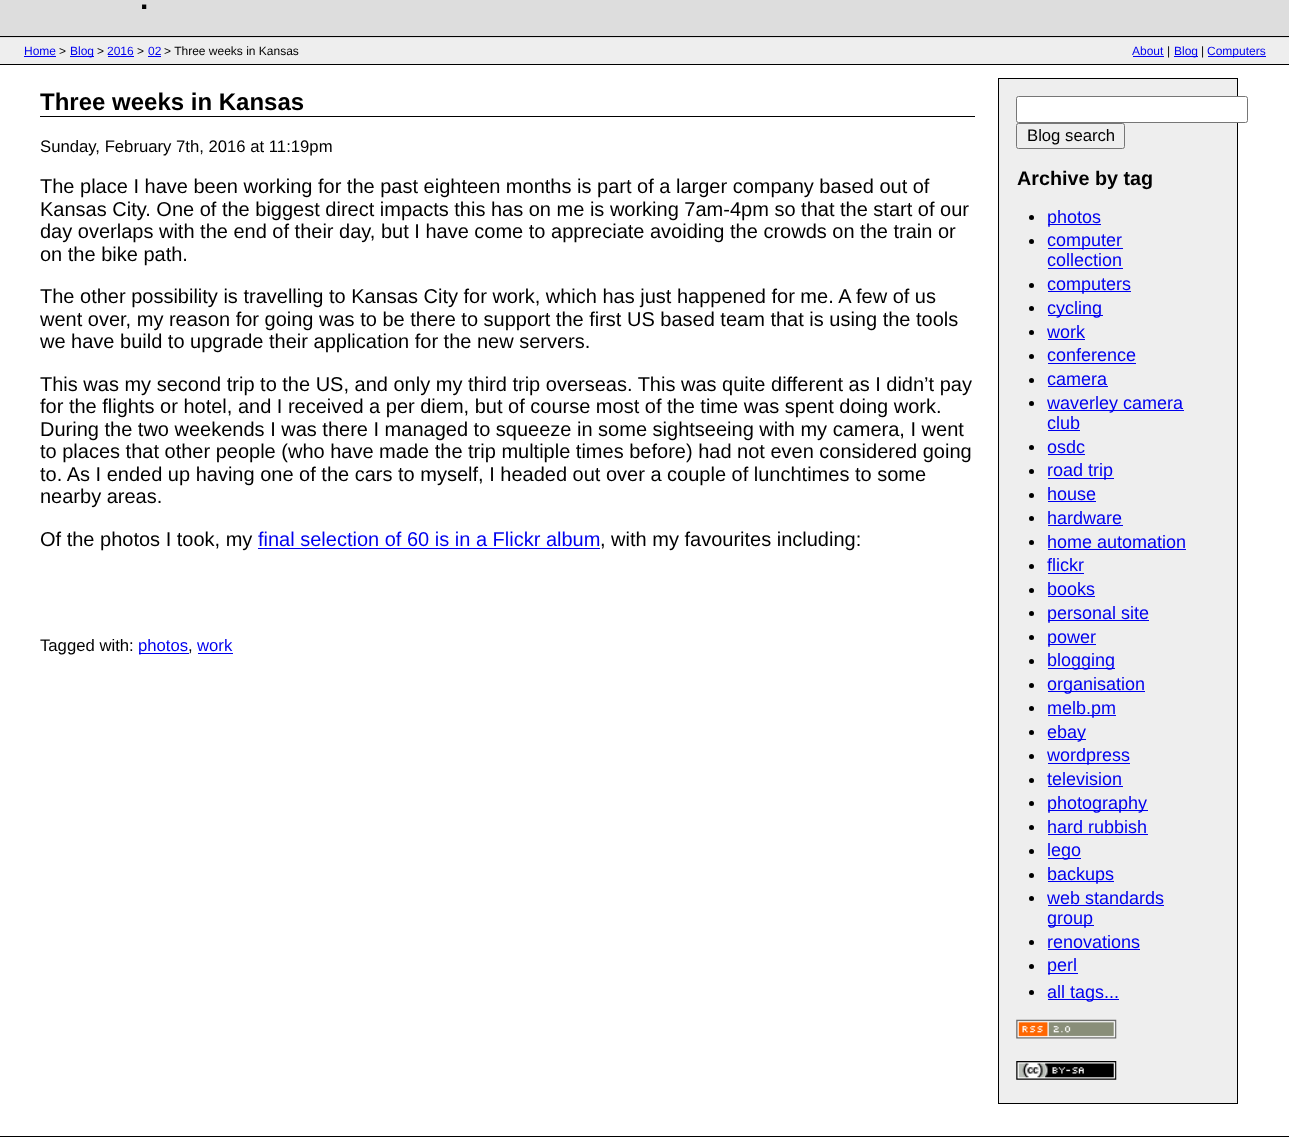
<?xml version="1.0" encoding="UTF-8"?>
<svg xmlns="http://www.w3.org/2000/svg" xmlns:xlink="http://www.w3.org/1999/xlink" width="1289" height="1147">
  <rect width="100%" height="100%" fill="#ffffff" />
  <rect width="1289" height="38" fill="#dddddd" />
  <rect y="36" width="1289" height="1" fill="#000000" />
  <rect y="38" width="1289" height="26" fill="#eeeeee" />
  <rect y="64" width="1289" height="1" fill="#000000" />
  <rect x="24" y="56" width="32" height="1" fill="#0000ee" />
  <rect x="70" y="56" width="24" height="1" fill="#0000ee" />
  <rect x="108" y="56" width="26" height="1" fill="#0000ee" />
  <rect x="148" y="56" width="13" height="1" fill="#0000ee" />
  <rect x="1133" y="56" width="31" height="1" fill="#0000ee" />
  <rect x="1174" y="56" width="24" height="1" fill="#0000ee" />
  <rect x="1208" y="56" width="58" height="1" fill="#0000ee" />
  <rect x="40" y="116" width="935" height="1" fill="#000000" />
  <rect x="258" y="548" width="342" height="1" fill="#0000ee" />
  <rect x="139" y="653" width="50" height="1" fill="#0000ee" />
  <rect x="198" y="653" width="35" height="1" fill="#0000ee" />
  <rect x="998.5" y="78.5" width="239" height="1025" fill="#eeeeee" stroke="#000000" />
  <rect x="1016.5" y="96.5" width="231" height="26" rx="2" fill="#ffffff" stroke="#767676" />
  <rect x="1016.5" y="123.5" width="108" height="25" rx="2" fill="none" stroke="#767676" />
  <circle cx="1031.5" cy="217.5" r="2.5" fill="#000000" />
  <rect x="1048" y="224" width="53" height="1" fill="#0000ee" />
  <circle cx="1031.5" cy="241.5" r="2.5" fill="#000000" />
  <rect x="1048" y="248" width="75" height="1" fill="#0000ee" />
  <rect x="1048" y="268" width="75" height="1" fill="#0000ee" />
  <circle cx="1031.5" cy="285.5" r="2.5" fill="#000000" />
  <rect x="1048" y="291" width="83" height="1" fill="#0000ee" />
  <circle cx="1031.5" cy="308.5" r="2.5" fill="#000000" />
  <rect x="1048" y="315" width="55" height="1" fill="#0000ee" />
  <circle cx="1031.5" cy="332.5" r="2.5" fill="#000000" />
  <rect x="1048" y="339" width="37" height="1" fill="#0000ee" />
  <circle cx="1031.5" cy="356.5" r="2.5" fill="#000000" />
  <rect x="1048" y="363" width="88" height="1" fill="#0000ee" />
  <circle cx="1031.5" cy="380.5" r="2.5" fill="#000000" />
  <rect x="1048" y="386" width="60" height="1" fill="#0000ee" />
  <circle cx="1031.5" cy="403.5" r="2.5" fill="#000000" />
  <rect x="1048" y="410" width="136" height="1" fill="#0000ee" />
  <rect x="1048" y="430" width="32" height="1" fill="#0000ee" />
  <circle cx="1031.5" cy="447.5" r="2.5" fill="#000000" />
  <rect x="1048" y="454" width="37" height="1" fill="#0000ee" />
  <circle cx="1031.5" cy="471.5" r="2.5" fill="#000000" />
  <rect x="1048" y="478" width="66" height="1" fill="#0000ee" />
  <circle cx="1031.5" cy="495.5" r="2.5" fill="#000000" />
  <rect x="1048" y="501" width="48" height="1" fill="#0000ee" />
  <circle cx="1031.5" cy="518.5" r="2.5" fill="#000000" />
  <rect x="1048" y="525" width="75" height="1" fill="#0000ee" />
  <circle cx="1031.5" cy="542.5" r="2.5" fill="#000000" />
  <rect x="1048" y="549" width="138" height="1" fill="#0000ee" />
  <circle cx="1031.5" cy="566.5" r="2.5" fill="#000000" />
  <rect x="1048" y="573" width="36" height="1" fill="#0000ee" />
  <circle cx="1031.5" cy="590.5" r="2.5" fill="#000000" />
  <rect x="1048" y="596" width="47" height="1" fill="#0000ee" />
  <circle cx="1031.5" cy="613.5" r="2.5" fill="#000000" />
  <rect x="1048" y="620" width="101" height="1" fill="#0000ee" />
  <circle cx="1031.5" cy="637.5" r="2.5" fill="#000000" />
  <rect x="1048" y="644" width="48" height="1" fill="#0000ee" />
  <circle cx="1031.5" cy="661.5" r="2.5" fill="#000000" />
  <rect x="1048" y="668" width="67" height="1" fill="#0000ee" />
  <circle cx="1031.5" cy="685.5" r="2.5" fill="#000000" />
  <rect x="1048" y="691" width="97" height="1" fill="#0000ee" />
  <circle cx="1031.5" cy="708.5" r="2.5" fill="#000000" />
  <rect x="1048" y="715" width="68" height="1" fill="#0000ee" />
  <circle cx="1031.5" cy="732.5" r="2.5" fill="#000000" />
  <rect x="1048" y="739" width="38" height="1" fill="#0000ee" />
  <circle cx="1031.5" cy="756.5" r="2.5" fill="#000000" />
  <rect x="1048" y="763" width="82" height="1" fill="#0000ee" />
  <circle cx="1031.5" cy="780.5" r="2.5" fill="#000000" />
  <rect x="1048" y="786" width="75" height="1" fill="#0000ee" />
  <circle cx="1031.5" cy="803.5" r="2.5" fill="#000000" />
  <rect x="1048" y="810" width="100" height="1" fill="#0000ee" />
  <circle cx="1031.5" cy="827.5" r="2.5" fill="#000000" />
  <rect x="1048" y="834" width="100" height="1" fill="#0000ee" />
  <circle cx="1031.5" cy="851.5" r="2.5" fill="#000000" />
  <rect x="1048" y="858" width="33" height="1" fill="#0000ee" />
  <circle cx="1031.5" cy="875.5" r="2.5" fill="#000000" />
  <rect x="1048" y="881" width="66" height="1" fill="#0000ee" />
  <circle cx="1031.5" cy="898.5" r="2.5" fill="#000000" />
  <rect x="1048" y="905" width="116" height="1" fill="#0000ee" />
  <rect x="1048" y="925" width="46" height="1" fill="#0000ee" />
  <circle cx="1031.5" cy="942.5" r="2.5" fill="#000000" />
  <rect x="1048" y="949" width="92" height="1" fill="#0000ee" />
  <circle cx="1031.5" cy="966.5" r="2.5" fill="#000000" />
  <rect x="1048" y="973" width="30" height="1" fill="#0000ee" />
  <circle cx="1031.5" cy="992.5" r="2.5" fill="#000000" />
  <rect x="1048" y="999" width="71" height="1" fill="#0000ee" />
  <image x="1016" y="1019" width="101" height="20" xlink:href="image1.png" />
  <image x="1016" y="1061" width="101" height="19" xlink:href="image2.png" />
  <rect y="1136" width="1289" height="1" fill="#000000" />
  <text x="140" y="9" style="font-family: Liberation Sans; font-size: 30px; font-weight: bold; fill: #000000">.</text>
  <text x="24" y="55" style="font-family: Liberation Sans; font-size: 12px; fill: #0000ee">Home</text>
  <text x="59" y="55" style="font-family: Liberation Sans; font-size: 12px; fill: #000000">&gt;</text>
  <text x="70" y="55" style="font-family: Liberation Sans; font-size: 12px; fill: #0000ee">Blog</text>
  <text x="97" y="55" style="font-family: Liberation Sans; font-size: 12px; fill: #000000">&gt;</text>
  <text x="107" y="55" style="font-family: Liberation Sans; font-size: 12px; fill: #0000ee">2016</text>
  <text x="137" y="55" style="font-family: Liberation Sans; font-size: 12px; fill: #000000">&gt;</text>
  <text x="148" y="55" style="font-family: Liberation Sans; font-size: 12px; fill: #0000ee">02</text>
  <text x="164" y="55" style="font-family: Liberation Sans; font-size: 12px; fill: #000000">&gt; Three weeks in Kansas</text>
  <text x="1132" y="55" style="font-family: Liberation Sans; font-size: 12px; fill: #0000ee">About</text>
  <text x="1167" y="55" style="font-family: Liberation Sans; font-size: 12px; fill: #000000">|</text>
  <text x="1174" y="55" style="font-family: Liberation Sans; font-size: 12px; fill: #0000ee">Blog</text>
  <text x="1201" y="55" style="font-family: Liberation Sans; font-size: 12px; fill: #000000">|</text>
  <text x="1207" y="55" style="font-family: Liberation Sans; font-size: 12px; fill: #0000ee">Computers</text>
  <text x="40" y="110" style="font-family: Liberation Sans; font-size: 24px; font-weight: bold; fill: #000000">Three weeks in Kansas</text>
  <text x="40" y="152" style="font-family: Liberation Sans; font-size: 16.7px; fill: #000000">Sunday, February 7th, 2016 at 11:19pm</text>
  <text x="40" y="193" style="font-family: Liberation Sans; font-size: 20px; fill: #000000">The place I have been working for the past eighteen months is part of a larger company based out of</text>
  <text x="40" y="216" style="font-family: Liberation Sans; font-size: 20px; fill: #000000">Kansas City. One of the biggest direct impacts this has on me is working 7am-4pm so that the start of our</text>
  <text x="40" y="238" style="font-family: Liberation Sans; font-size: 20px; fill: #000000">day overlaps with the end of their day, but I have come to appreciate avoiding the crowds on the train or</text>
  <text x="40" y="261" style="font-family: Liberation Sans; font-size: 20px; fill: #000000">on the bike path.</text>
  <text x="40" y="303" style="font-family: Liberation Sans; font-size: 20px; fill: #000000">The other possibility is travelling to Kansas City for work, which has just happened for me. A few of us</text>
  <text x="40" y="326" style="font-family: Liberation Sans; font-size: 20px; fill: #000000">went over, my reason for going was to be there to support the first US based team that is using the tools</text>
  <text x="40" y="348" style="font-family: Liberation Sans; font-size: 20px; fill: #000000">we have build to upgrade their application for the new servers.</text>
  <text x="40" y="391" style="font-family: Liberation Sans; font-size: 20px; fill: #000000">This was my second trip to the US, and only my third trip overseas. This was quite different as I didn’t pay</text>
  <text x="40" y="413" style="font-family: Liberation Sans; font-size: 20px; fill: #000000">for the flights or hotel, and I received a per diem, but of course most of the time was spent doing work.</text>
  <text x="40" y="436" style="font-family: Liberation Sans; font-size: 20px; fill: #000000">During the two weekends I was there I managed to squeeze in some sightseeing with my camera, I went</text>
  <text x="40" y="458" style="font-family: Liberation Sans; font-size: 20px; fill: #000000">to places that other people (who have made the trip multiple times before) had not even considered going</text>
  <text x="40" y="481" style="font-family: Liberation Sans; font-size: 20px; fill: #000000">to. As I ended up having one of the cars to myself, I headed out over a couple of lunchtimes to some</text>
  <text x="40" y="503" style="font-family: Liberation Sans; font-size: 20px; fill: #000000">nearby areas.</text>
  <text x="40" y="546" style="font-family: Liberation Sans; font-size: 20px; fill: #000000">Of the photos I took, my</text>
  <text x="258" y="546" style="font-family: Liberation Sans; font-size: 20px; fill: #0000ee">final selection of 60 is in a Flickr album</text>
  <text x="600" y="546" style="font-family: Liberation Sans; font-size: 20px; fill: #000000">, with my favourites including:</text>
  <text x="40" y="651" style="font-family: Liberation Sans; font-size: 16.7px; fill: #000000">Tagged with:</text>
  <text x="138" y="651" style="font-family: Liberation Sans; font-size: 16.7px; fill: #0000ee">photos</text>
  <text x="188" y="651" style="font-family: Liberation Sans; font-size: 16.7px; fill: #000000">,</text>
  <text x="197" y="651" style="font-family: Liberation Sans; font-size: 16.7px; fill: #0000ee">work</text>
  <text x="1027" y="141" style="font-family: Liberation Sans; font-size: 16.7px; fill: #000000">Blog search</text>
  <text x="1017" y="185" style="font-family: Liberation Sans; font-size: 19.75px; font-weight: bold; fill: #000000">Archive by tag</text>
  <text x="1047" y="223" style="font-family: Liberation Sans; font-size: 18px; fill: #0000ee">photos</text>
  <text x="1047" y="246" style="font-family: Liberation Sans; font-size: 18px; fill: #0000ee">computer</text>
  <text x="1047" y="266" style="font-family: Liberation Sans; font-size: 18px; fill: #0000ee">collection</text>
  <text x="1047" y="290" style="font-family: Liberation Sans; font-size: 18px; fill: #0000ee">computers</text>
  <text x="1047" y="314" style="font-family: Liberation Sans; font-size: 18px; fill: #0000ee">cycling</text>
  <text x="1047" y="338" style="font-family: Liberation Sans; font-size: 18px; fill: #0000ee">work</text>
  <text x="1047" y="361" style="font-family: Liberation Sans; font-size: 18px; fill: #0000ee">conference</text>
  <text x="1047" y="385" style="font-family: Liberation Sans; font-size: 18px; fill: #0000ee">camera</text>
  <text x="1047" y="409" style="font-family: Liberation Sans; font-size: 18px; fill: #0000ee">waverley camera</text>
  <text x="1047" y="429" style="font-family: Liberation Sans; font-size: 18px; fill: #0000ee">club</text>
  <text x="1047" y="453" style="font-family: Liberation Sans; font-size: 18px; fill: #0000ee">osdc</text>
  <text x="1047" y="476" style="font-family: Liberation Sans; font-size: 18px; fill: #0000ee">road trip</text>
  <text x="1047" y="500" style="font-family: Liberation Sans; font-size: 18px; fill: #0000ee">house</text>
  <text x="1047" y="524" style="font-family: Liberation Sans; font-size: 18px; fill: #0000ee">hardware</text>
  <text x="1047" y="548" style="font-family: Liberation Sans; font-size: 18px; fill: #0000ee">home automation</text>
  <text x="1047" y="571" style="font-family: Liberation Sans; font-size: 18px; fill: #0000ee">flickr</text>
  <text x="1047" y="595" style="font-family: Liberation Sans; font-size: 18px; fill: #0000ee">books</text>
  <text x="1047" y="619" style="font-family: Liberation Sans; font-size: 18px; fill: #0000ee">personal site</text>
  <text x="1047" y="643" style="font-family: Liberation Sans; font-size: 18px; fill: #0000ee">power</text>
  <text x="1047" y="666" style="font-family: Liberation Sans; font-size: 18px; fill: #0000ee">blogging</text>
  <text x="1047" y="690" style="font-family: Liberation Sans; font-size: 18px; fill: #0000ee">organisation</text>
  <text x="1047" y="714" style="font-family: Liberation Sans; font-size: 18px; fill: #0000ee">melb.pm</text>
  <text x="1047" y="738" style="font-family: Liberation Sans; font-size: 18px; fill: #0000ee">ebay</text>
  <text x="1047" y="761" style="font-family: Liberation Sans; font-size: 18px; fill: #0000ee">wordpress</text>
  <text x="1047" y="785" style="font-family: Liberation Sans; font-size: 18px; fill: #0000ee">television</text>
  <text x="1047" y="809" style="font-family: Liberation Sans; font-size: 18px; fill: #0000ee">photography</text>
  <text x="1047" y="833" style="font-family: Liberation Sans; font-size: 18px; fill: #0000ee">hard rubbish</text>
  <text x="1047" y="856" style="font-family: Liberation Sans; font-size: 18px; fill: #0000ee">lego</text>
  <text x="1047" y="880" style="font-family: Liberation Sans; font-size: 18px; fill: #0000ee">backups</text>
  <text x="1047" y="904" style="font-family: Liberation Sans; font-size: 18px; fill: #0000ee">web standards</text>
  <text x="1047" y="924" style="font-family: Liberation Sans; font-size: 18px; fill: #0000ee">group</text>
  <text x="1047" y="948" style="font-family: Liberation Sans; font-size: 18px; fill: #0000ee">renovations</text>
  <text x="1047" y="971" style="font-family: Liberation Sans; font-size: 18px; fill: #0000ee">perl</text>
  <text x="1047" y="998" style="font-family: Liberation Sans; font-size: 18px; fill: #0000ee">all tags...</text>
</svg>
